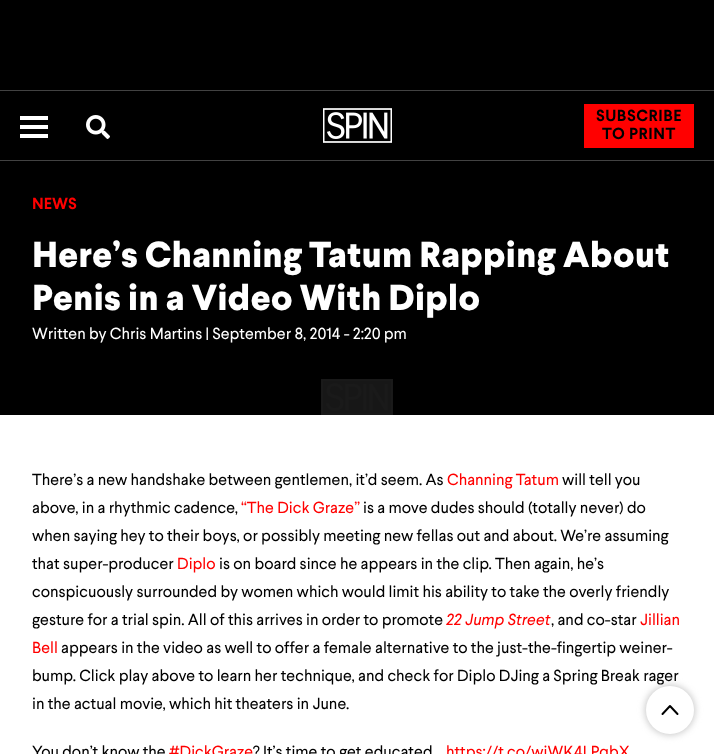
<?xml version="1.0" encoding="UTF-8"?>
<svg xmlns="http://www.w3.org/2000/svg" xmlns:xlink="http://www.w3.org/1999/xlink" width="714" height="754">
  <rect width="100%" height="100%" fill="#000000" />
  <rect y="90" width="714" height="1" fill="#424242" />
  <rect y="160" width="714" height="1" fill="#424242" />
  <rect x="20" y="134" width="28" height="4" fill="#ffffff" />
  <rect x="20" y="116" width="28" height="4" fill="#ffffff" />
  <rect x="20" y="125" width="28" height="4" fill="#ffffff" />
  <image x="86" y="115" width="24" height="24" xlink:href="image1.png" />
  <image x="323" y="108" width="69" height="35" xlink:href="image2.png" />
  <rect x="584" y="104" width="110" height="44" fill="#ff0000" />
  <image x="321" y="379" width="72" height="36" xlink:href="image3.png" />
  <rect y="415" width="714" height="339" fill="#ffffff" />
  <rect x="645" y="685" width="50" height="50" rx="25" fill="#c7c7c7" filter="blur(3.5px)" />
  <circle cx="670" cy="710" r="24" fill="#ffffff" />
  <path d="M 662.5 714 l 7.5 -8 l 7.5 8" fill="none" stroke="#000000" stroke-width="2" stroke-linecap="round" stroke-linejoin="round" />
  <text x="596" y="121" style="font-family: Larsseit; font-size: 16px; font-weight: bold; letter-spacing: 0.5px; fill: #000000">SUBSCRIBE</text>
  <text x="602" y="139" style="font-family: Larsseit; font-size: 16px; font-weight: bold; letter-spacing: 0.5px; fill: #000000">TO PRINT</text>
  <text x="32" y="209" style="font-family: Larsseit; font-size: 16px; font-weight: bold; fill: #ff0000">NEWS</text>
  <text x="32" y="267" style="font-family: Larsseit; font-size: 36px; font-weight: 800; fill: #ffffff">Here’s Channing Tatum Rapping About</text>
  <text x="32" y="310" style="font-family: Larsseit; font-size: 36px; font-weight: 800; fill: #ffffff">Penis in a Video With Diplo</text>
  <text x="32" y="339" style="font-family: Larsseit; font-size: 16px; fill: #ffffff">Written by Chris Martins | September 8, 2014 - 2:20 pm</text>
  <text x="32" y="485" style="font-family: Larsseit; font-size: 16px; fill: #000000">There’s a new handshake between gentlemen, it’d seem. As</text>
  <text x="447" y="485" style="font-family: Larsseit; font-size: 16px; fill: #ff0000">Channing Tatum</text>
  <text x="562" y="485" style="font-family: Larsseit; font-size: 16px; fill: #000000">will tell you</text>
  <text x="32" y="513" style="font-family: Larsseit; font-size: 16px; fill: #000000">above, in a rhythmic cadence,</text>
  <text x="241" y="513" style="font-family: Larsseit; font-size: 16px; fill: #ff0000">“The Dick Graze”</text>
  <text x="363" y="513" style="font-family: Larsseit; font-size: 16px; fill: #000000">is a move dudes should (totally never) do</text>
  <text x="32" y="541" style="font-family: Larsseit; font-size: 16px; fill: #000000">when saying hey to their boys, or possibly meeting new fellas out and about. We’re assuming</text>
  <text x="32" y="569" style="font-family: Larsseit; font-size: 16px; fill: #000000">that super-producer</text>
  <text x="177" y="569" style="font-family: Larsseit; font-size: 16px; fill: #ff0000">Diplo</text>
  <text x="219" y="569" style="font-family: Larsseit; font-size: 16px; fill: #000000">is on board since he appears in the clip. Then again, he’s</text>
  <text x="32" y="597" style="font-family: Larsseit; font-size: 16px; fill: #000000">conspicuously surrounded by women which would limit his ability to take the overly friendly</text>
  <text x="32" y="625" style="font-family: Larsseit; font-size: 16px; fill: #000000">gesture for a trial spin. All of this arrives in order to promote</text>
  <text x="446" y="625" style="font-family: Larsseit; font-size: 16px; font-style: italic; fill: #ff0000">22 Jump Street</text>
  <text x="551" y="625" style="font-family: Larsseit; font-size: 16px; fill: #000000">, and co-star</text>
  <text x="640" y="625" style="font-family: Larsseit; font-size: 16px; fill: #ff0000">Jillian</text>
  <text x="32" y="653" style="font-family: Larsseit; font-size: 16px; fill: #ff0000">Bell</text>
  <text x="61" y="653" style="font-family: Larsseit; font-size: 16px; fill: #000000">appears in the video as well to offer a female alternative to the just-the-fingertip weiner-</text>
  <text x="32" y="681" style="font-family: Larsseit; font-size: 16px; fill: #000000">bump. Click play above to learn her technique, and check for Diplo DJing a Spring Break rager</text>
  <text x="32" y="709" style="font-family: Larsseit; font-size: 16px; fill: #000000">in the actual movie, which hit theaters in June.</text>
  <text x="32" y="757" style="font-family: Larsseit; font-size: 16px; fill: #000000">You don’t know the</text>
  <text x="169" y="757" style="font-family: Larsseit; font-size: 16px; fill: #ff0000">#DickGraze</text>
  <text x="253" y="757" style="font-family: Larsseit; font-size: 16px; fill: #000000">? It’s time to get educated</text>
  <text x="446" y="757" style="font-family: Larsseit; font-size: 16px; fill: #ff0000">https://t.co/wiWK4LPqbX</text>
</svg>
